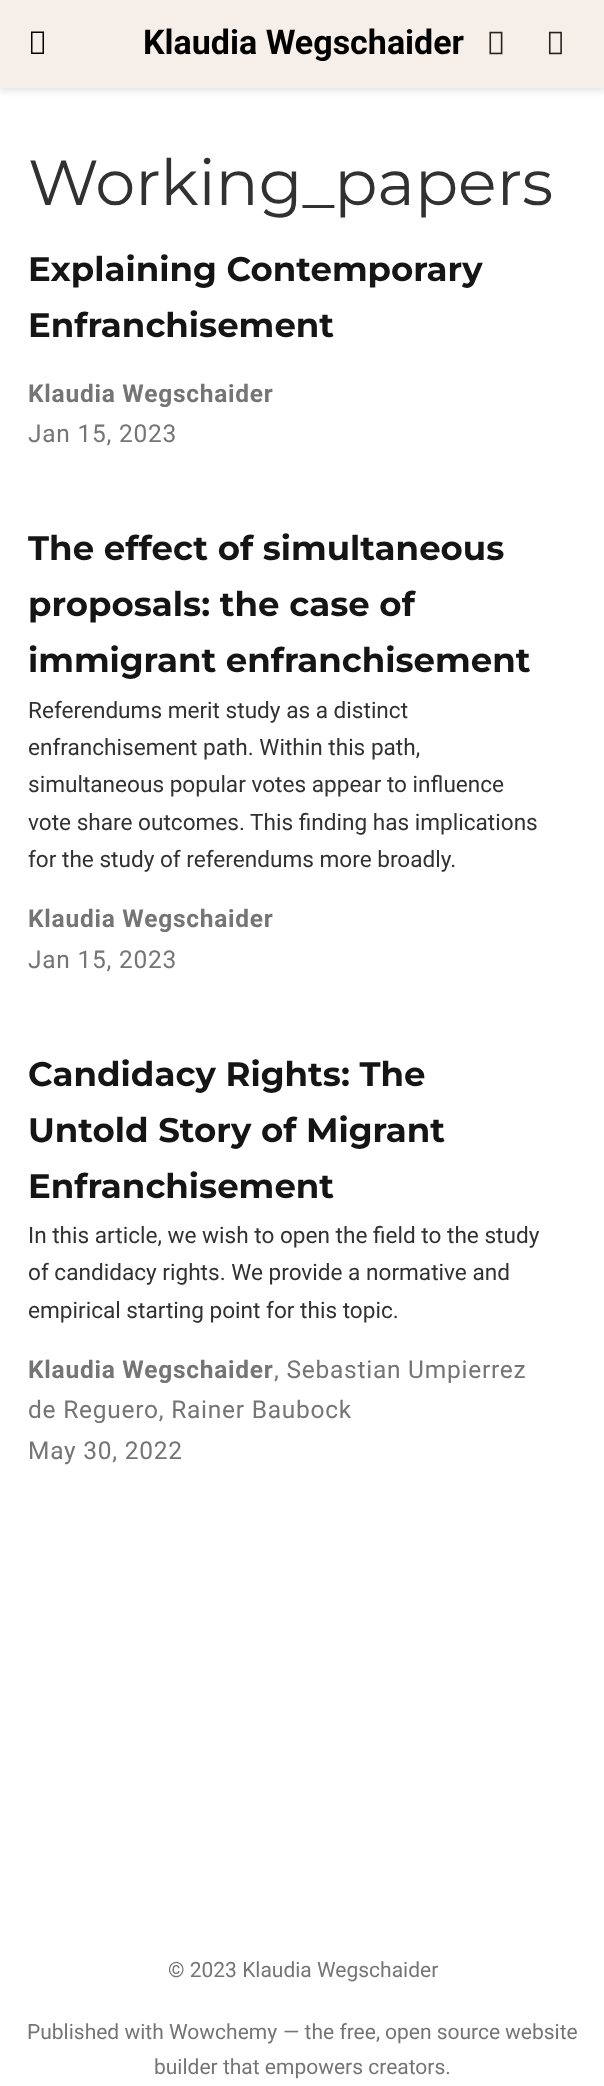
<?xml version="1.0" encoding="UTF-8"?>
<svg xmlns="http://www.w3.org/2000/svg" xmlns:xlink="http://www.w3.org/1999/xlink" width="604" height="2086">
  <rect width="100%" height="100%" fill="#ffffff" />
  <rect y="4" width="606" height="87" fill="#000000" fill-opacity="0.11" filter="blur(3.5px)" />
  <rect width="604" height="88" fill="#f6eee9" />
  <path d="M 31 54 v -22.5 h 13 v 22.5 z m 1.5 -1.5 h 10 v -19.5 h -10 z" fill="#000000" />
  <image x="489" y="31" width="14" height="24" xlink:href="image1.png" />
  <image x="548" y="31" width="14" height="24" xlink:href="image2.png" />
  <text x="143" y="54" style="font-family: Roboto; font-size: 34px; font-weight: bold; fill: #000000">Klaudia Wegschaider</text>
  <text x="28" y="205" style="font-family: Montserrat; font-size: 63.75px; fill: #313131">Working_papers</text>
  <text x="28" y="281" style="font-family: Montserrat; font-size: 34px; font-weight: bold; fill: #151515">Explaining Contemporary</text>
  <text x="28" y="337" style="font-family: Montserrat; font-size: 34px; font-weight: bold; fill: #151515">Enfranchisement</text>
  <text x="28" y="402" style="font-family: Roboto; font-size: 24.5px; font-weight: bold; letter-spacing: 0.75px; fill: #757575">Klaudia Wegschaider</text>
  <text x="28" y="442" style="font-family: Roboto; font-size: 24.5px; letter-spacing: 0.75px; fill: #757575">Jan 15, 2023</text>
  <text x="28" y="560" style="font-family: Montserrat; font-size: 34px; font-weight: bold; fill: #151515">The effect of simultaneous</text>
  <text x="28" y="616" style="font-family: Montserrat; font-size: 34px; font-weight: bold; fill: #151515">proposals: the case of</text>
  <text x="28" y="672" style="font-family: Montserrat; font-size: 34px; font-weight: bold; fill: #151515">immigrant enfranchisement</text>
  <text x="28" y="718" style="font-family: Roboto; font-size: 22.6px; fill: #313131">Referendums merit study as a distinct</text>
  <text x="28" y="755" style="font-family: Roboto; font-size: 22.6px; fill: #313131">enfranchisement path. Within this path,</text>
  <text x="28" y="792" style="font-family: Roboto; font-size: 22.6px; fill: #313131">simultaneous popular votes appear to influence</text>
  <text x="28" y="830" style="font-family: Roboto; font-size: 22.6px; fill: #313131">vote share outcomes. This finding has implications</text>
  <text x="28" y="867" style="font-family: Roboto; font-size: 22.6px; fill: #313131">for the study of referendums more broadly.</text>
  <text x="28" y="927" style="font-family: Roboto; font-size: 24.5px; font-weight: bold; letter-spacing: 0.75px; fill: #757575">Klaudia Wegschaider</text>
  <text x="28" y="968" style="font-family: Roboto; font-size: 24.5px; letter-spacing: 0.75px; fill: #757575">Jan 15, 2023</text>
  <text x="28" y="1086" style="font-family: Montserrat; font-size: 34px; font-weight: bold; fill: #151515">Candidacy Rights: The</text>
  <text x="28" y="1142" style="font-family: Montserrat; font-size: 34px; font-weight: bold; fill: #151515">Untold Story of Migrant</text>
  <text x="28" y="1198" style="font-family: Montserrat; font-size: 34px; font-weight: bold; fill: #151515">Enfranchisement</text>
  <text x="28" y="1243" style="font-family: Roboto; font-size: 22.6px; fill: #313131">In this article, we wish to open the field to the study</text>
  <text x="28" y="1280" style="font-family: Roboto; font-size: 22.6px; fill: #313131">of candidacy rights. We provide a normative and</text>
  <text x="28" y="1318" style="font-family: Roboto; font-size: 22.6px; fill: #313131">empirical starting point for this topic.</text>
  <text x="28" y="1378" style="font-family: Roboto; font-size: 24.5px; font-weight: bold; letter-spacing: 0.75px; fill: #757575">Klaudia Wegschaider</text>
  <text x="274" y="1378" style="font-family: Roboto; font-size: 24.5px; letter-spacing: 0.75px; fill: #757575">, Sebastian Umpierrez</text>
  <text x="28" y="1418" style="font-family: Roboto; font-size: 24.5px; letter-spacing: 0.75px; fill: #757575">de Reguero, Rainer Baubock</text>
  <text x="28" y="1459" style="font-family: Roboto; font-size: 24.5px; letter-spacing: 0.75px; fill: #757575">May 30, 2022</text>
  <text x="168" y="1977" style="font-family: Roboto; font-size: 21px; fill: #757575">© 2023 Klaudia Wegschaider</text>
  <text x="27" y="2039" style="font-family: Roboto; font-size: 21px; fill: #757575">Published with</text>
  <text x="169" y="2039" style="font-family: Roboto; font-size: 21px; fill: #757575">Wowchemy</text>
  <text x="283" y="2039" style="font-family: Roboto; font-size: 21px; fill: #757575">— the free,</text>
  <text x="385" y="2039" style="font-family: Roboto; font-size: 21px; fill: #757575">open source</text>
  <text x="505" y="2039" style="font-family: Roboto; font-size: 21px; fill: #757575">website</text>
  <text x="154" y="2074" style="font-family: Roboto; font-size: 21px; fill: #757575">builder that empowers creators.</text>
</svg>
